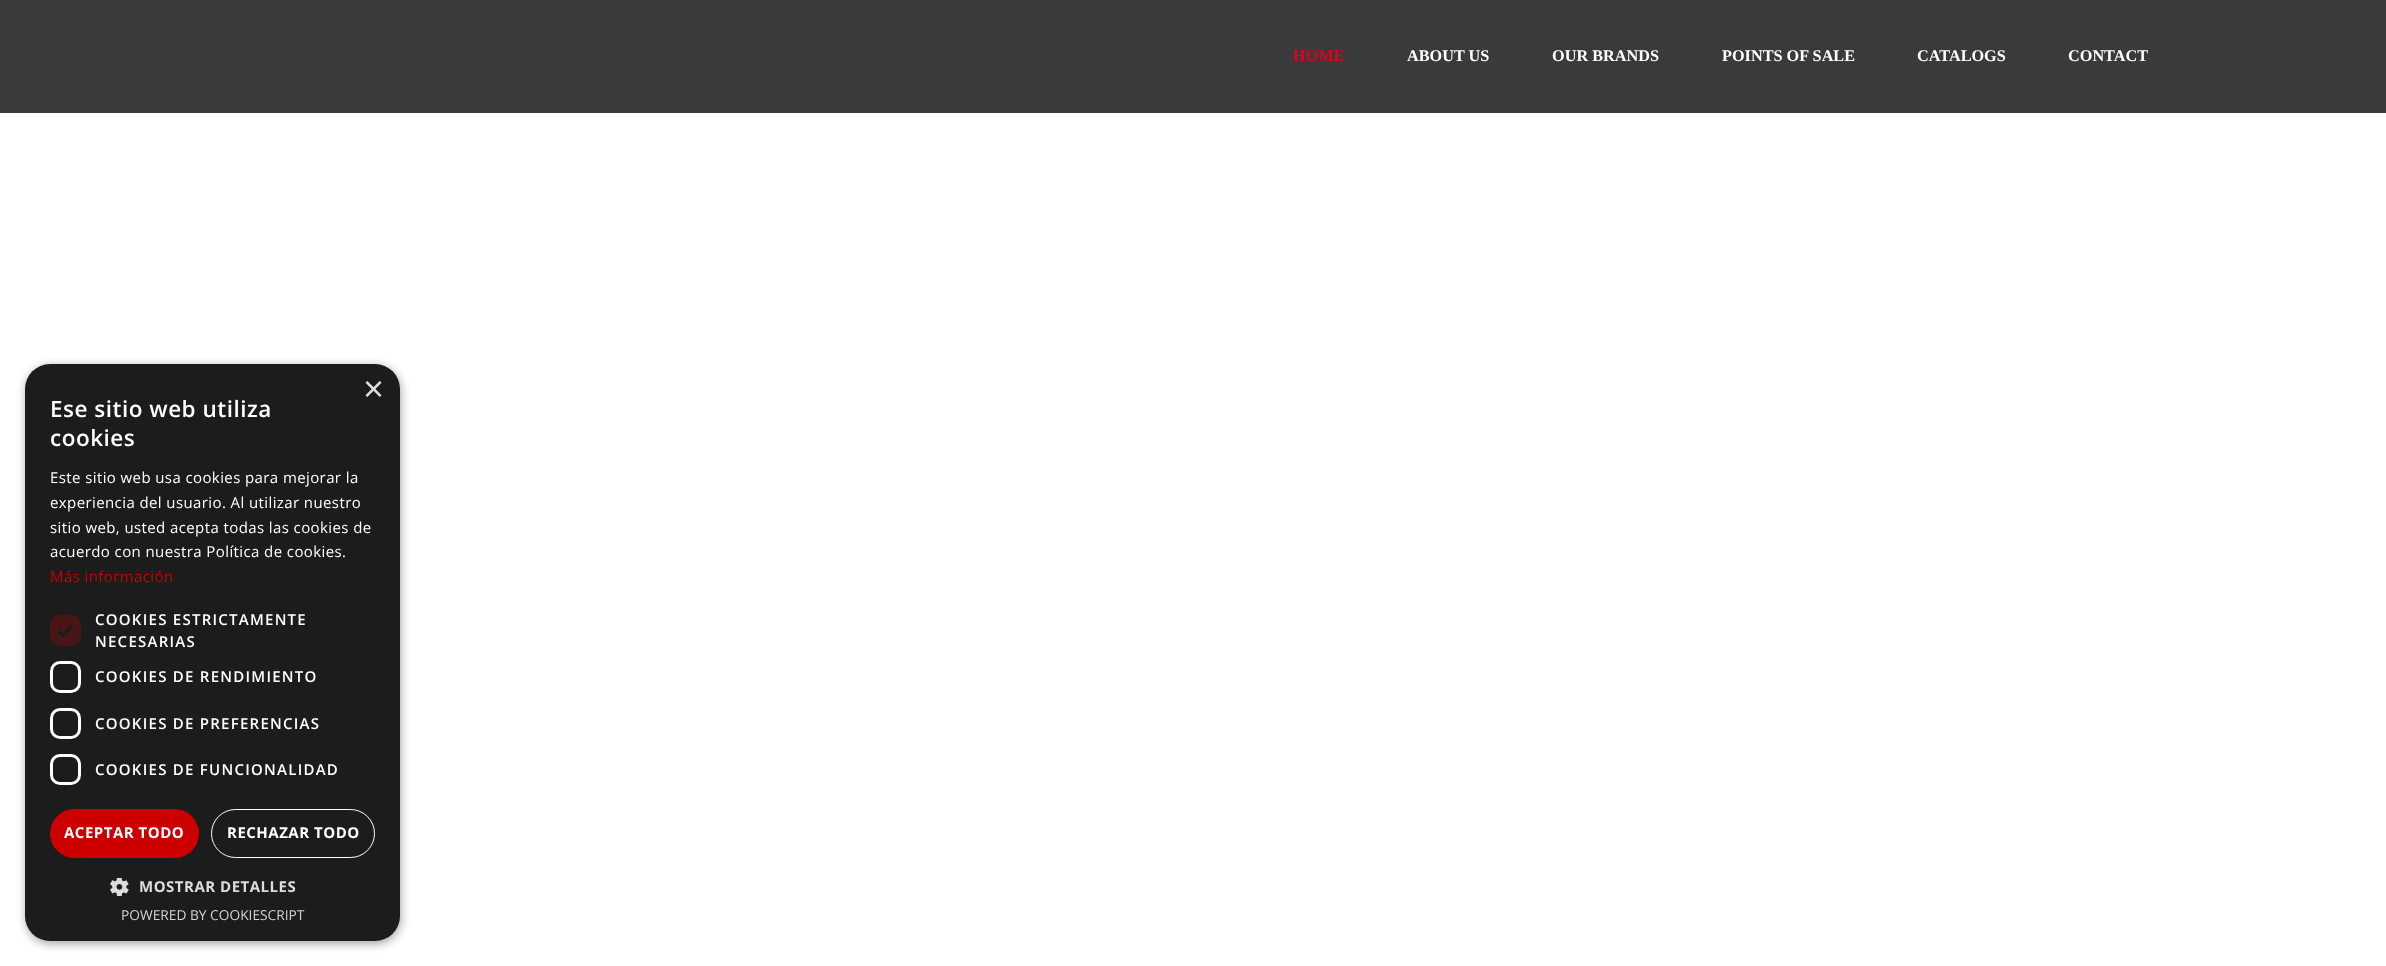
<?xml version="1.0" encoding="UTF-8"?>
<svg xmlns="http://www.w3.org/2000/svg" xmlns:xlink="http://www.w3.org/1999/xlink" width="2386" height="966">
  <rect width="100%" height="100%" fill="#ffffff" />
  <rect width="2386" height="113" fill="#3a3a3c" />
  <rect x="26" y="366" width="375" height="578" rx="25" fill="#000000" fill-opacity="0.35" filter="blur(5px)" />
  <rect x="25" y="364" width="375" height="577" rx="25" fill="#1c1c1c" />
  <rect x="50" y="615" width="31" height="31" rx="10" fill="#4a1515" />
  <path d="M 58.5 631.5 l 4.5 4 l 9.5 -9.5" fill="none" stroke="#1c1c1c" stroke-width="3.3" />
  <rect x="51.5" y="662.5" width="28" height="29" rx="8.5" fill="none" stroke="#ffffff" stroke-width="3" />
  <rect x="51.5" y="709.5" width="28" height="28" rx="8.5" fill="none" stroke="#ffffff" stroke-width="3" />
  <rect x="51.5" y="755.5" width="28" height="28" rx="8.5" fill="none" stroke="#ffffff" stroke-width="3" />
  <rect x="50" y="809" width="149" height="49" rx="24.5" fill="#cc0000" />
  <rect x="211.5" y="809.5" width="163" height="48" rx="24" fill="none" stroke="#ffffff" />
  <image x="110" y="878" width="19" height="18" xlink:href="image1.png" />
  <text x="1293" y="61" style="font-family: Liberation Serif; font-size: 16.25px; font-weight: bold; fill: #e3001c">HOME</text>
  <text x="1407" y="61" style="font-family: Liberation Serif; font-size: 16.25px; font-weight: bold; fill: #ffffff">ABOUT US</text>
  <text x="1552" y="61" style="font-family: Liberation Serif; font-size: 16.25px; font-weight: bold; fill: #ffffff">OUR BRANDS</text>
  <text x="1722" y="61" style="font-family: Liberation Serif; font-size: 16.25px; font-weight: bold; fill: #ffffff">POINTS OF SALE</text>
  <text x="1917" y="61" style="font-family: Liberation Serif; font-size: 16.25px; font-weight: bold; fill: #ffffff">CATALOGS</text>
  <text x="2068" y="61" style="font-family: Liberation Serif; font-size: 16.25px; font-weight: bold; fill: #ffffff">CONTACT</text>
  <text x="363" y="401" style="font-family: Liberation Sans; font-size: 36px; fill: #dddddd">×</text>
  <text x="50" y="417" style="font-family: Open Sans; font-size: 22.5px; font-weight: 600; letter-spacing: 0.5px; fill: #ffffff">Ese sitio web utiliza</text>
  <text x="50" y="446" style="font-family: Open Sans; font-size: 22.5px; font-weight: 600; letter-spacing: 0.5px; fill: #ffffff">cookies</text>
  <text x="50" y="483" style="font-family: Open Sans; font-size: 15px; letter-spacing: 0.4px; fill: #ffffff">Este sitio web usa cookies para mejorar la</text>
  <text x="50" y="508" style="font-family: Open Sans; font-size: 15px; letter-spacing: 0.4px; fill: #ffffff">experiencia del usuario. Al utilizar nuestro</text>
  <text x="50" y="533" style="font-family: Open Sans; font-size: 15px; letter-spacing: 0.4px; fill: #ffffff">sitio web, usted acepta todas las cookies de</text>
  <text x="50" y="557" style="font-family: Open Sans; font-size: 15px; letter-spacing: 0.4px; fill: #ffffff">acuerdo con nuestra Política de cookies.</text>
  <text x="50" y="582" style="font-family: Open Sans; font-size: 15px; letter-spacing: 0.4px; fill: #cc0000">Más información</text>
  <text x="95" y="625" style="font-family: Open Sans; font-size: 15px; font-weight: 600; letter-spacing: 1.25px; fill: #ffffff">COOKIES ESTRICTAMENTE</text>
  <text x="95" y="647" style="font-family: Open Sans; font-size: 15px; font-weight: 600; letter-spacing: 1.25px; fill: #ffffff">NECESARIAS</text>
  <text x="95" y="682" style="font-family: Open Sans; font-size: 15px; font-weight: 600; letter-spacing: 1.25px; fill: #ffffff">COOKIES DE RENDIMIENTO</text>
  <text x="95" y="729" style="font-family: Open Sans; font-size: 15px; font-weight: 600; letter-spacing: 1.25px; fill: #ffffff">COOKIES DE PREFERENCIAS</text>
  <text x="95" y="775" style="font-family: Open Sans; font-size: 15px; font-weight: 600; letter-spacing: 1.25px; fill: #ffffff">COOKIES DE FUNCIONALIDAD</text>
  <text x="64" y="838" style="font-family: Open Sans; font-size: 15px; font-weight: bold; letter-spacing: 0.5px; fill: #ffffff">ACEPTAR TODO</text>
  <text x="227" y="838" style="font-family: Open Sans; font-size: 15px; font-weight: bold; letter-spacing: 0.5px; fill: #ffffff">RECHAZAR TODO</text>
  <text x="139" y="892" style="font-family: Open Sans; font-size: 15px; font-weight: bold; letter-spacing: 0.5px; fill: #dddddd">MOSTRAR DETALLES</text>
  <text x="121" y="920" style="font-family: Open Sans; font-size: 13.75px; fill: #d2d2d2">POWERED BY COOKIESCRIPT</text>
</svg>
